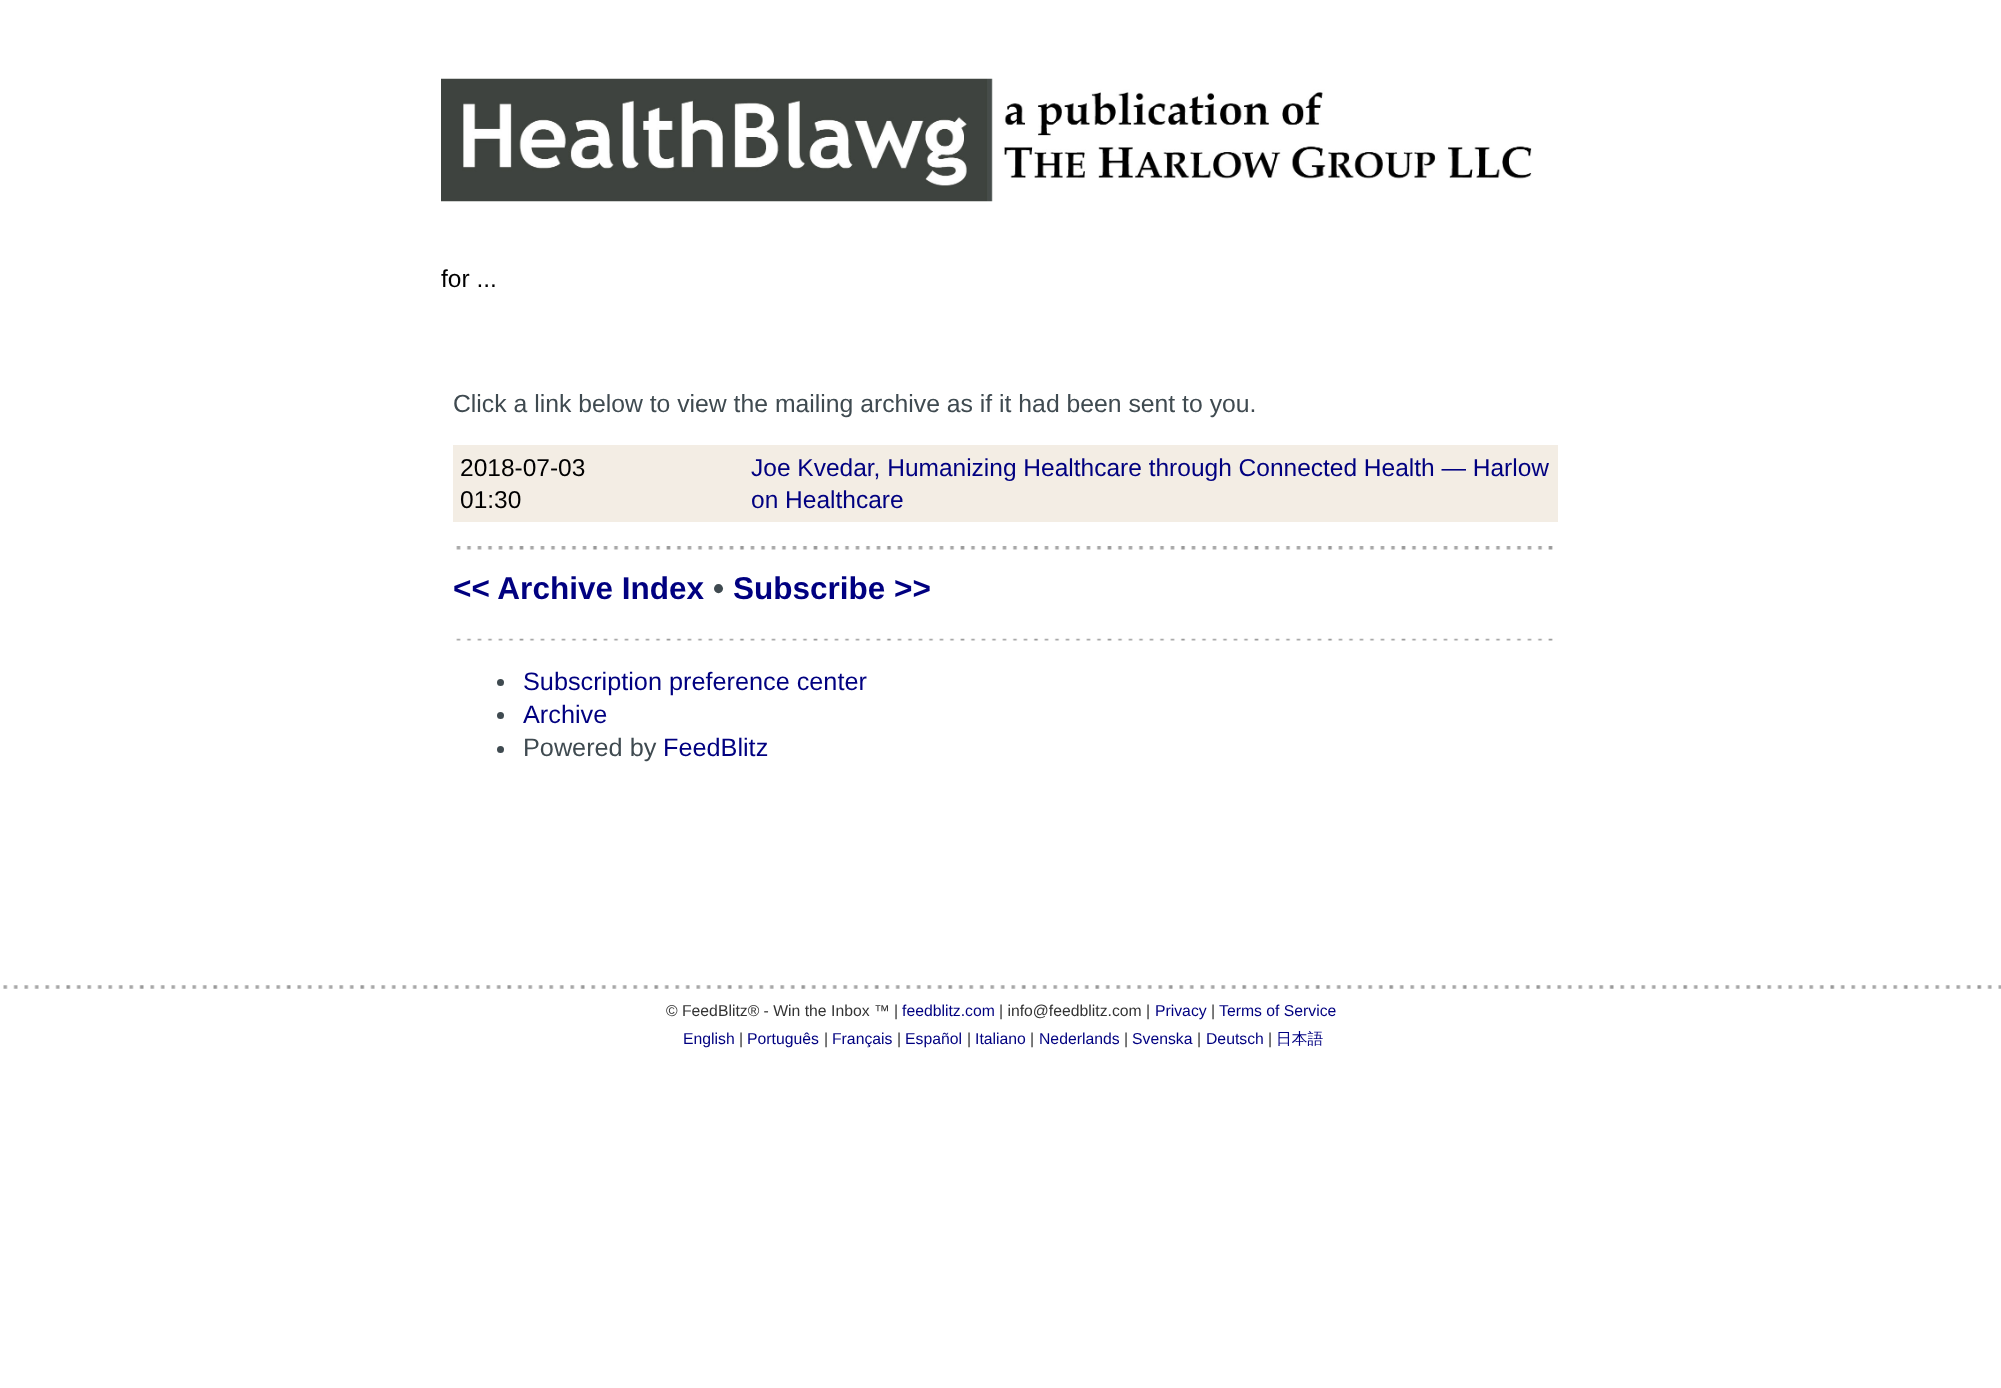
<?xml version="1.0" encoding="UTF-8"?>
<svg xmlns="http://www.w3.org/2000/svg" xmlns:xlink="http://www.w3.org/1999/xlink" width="2001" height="1388">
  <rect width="100%" height="100%" fill="#ffffff" />
  <image x="441" y="78" width="1091" height="124" xlink:href="image1.png" />
  <rect x="453" y="445" width="1105" height="77" fill="#f3ede4" />
  <image x="456" y="546" width="1097" height="4" xlink:href="image2.png" />
  <image x="456" y="638" width="1097" height="3" xlink:href="image3.png" />
  <circle cx="500.5" cy="682.5" r="3.5" fill="#3f4a50" />
  <circle cx="500.5" cy="715.5" r="3.5" fill="#3f4a50" />
  <circle cx="500.5" cy="749.5" r="3.5" fill="#3f4a50" />
  <image x="3" y="985" width="1998" height="4" xlink:href="image4.png" />
  <text x="441" y="287" style="font-family: Liberation Sans; font-size: 24.5px; fill: #000000">for ...</text>
  <text x="453" y="412" style="font-family: Liberation Sans; font-size: 24.75px; fill: #3f4a50">Click a link below to view the mailing archive as if it had been sent to you.</text>
  <text x="460" y="476" style="font-family: Liberation Sans; font-size: 24.5px; fill: #000000">2018-07-03</text>
  <text x="460" y="508" style="font-family: Liberation Sans; font-size: 24.5px; fill: #000000">01:30</text>
  <text x="751" y="476" style="font-family: Liberation Sans; font-size: 24.5px; fill: #000080">Joe Kvedar, Humanizing Healthcare through Connected Health — Harlow</text>
  <text x="751" y="508" style="font-family: Liberation Sans; font-size: 24.5px; fill: #000080">on Healthcare</text>
  <text x="453" y="599" style="font-family: Liberation Sans; font-size: 31.5px; font-weight: bold; fill: #000080">&lt;&lt; Archive Index</text>
  <text x="713" y="599" style="font-family: Liberation Sans; font-size: 31.5px; font-weight: bold; fill: #3f4a50">•</text>
  <text x="733" y="599" style="font-family: Liberation Sans; font-size: 31.5px; font-weight: bold; fill: #000080">Subscribe &gt;&gt;</text>
  <text x="523" y="690" style="font-family: Liberation Sans; font-size: 25.25px; fill: #000080">Subscription preference center</text>
  <text x="523" y="723" style="font-family: Liberation Sans; font-size: 25.25px; fill: #000080">Archive</text>
  <text x="523" y="756" style="font-family: Liberation Sans; font-size: 25.25px; fill: #3f4a50">Powered by</text>
  <text x="663" y="756" style="font-family: Liberation Sans; font-size: 25.25px; fill: #000080">FeedBlitz</text>
  <text x="666" y="1016" style="font-family: Liberation Sans; font-size: 15.75px; fill: #333333">© FeedBlitz® - Win the Inbox ™ |</text>
  <text x="902" y="1016" style="font-family: Liberation Sans; font-size: 15.75px; fill: #000080">feedblitz.com</text>
  <text x="999" y="1016" style="font-family: Liberation Sans; font-size: 15.75px; fill: #333333">| info@feedblitz.com |</text>
  <text x="1155" y="1016" style="font-family: Liberation Sans; font-size: 15.75px; fill: #000080">Privacy</text>
  <text x="1211" y="1016" style="font-family: Liberation Sans; font-size: 15.75px; fill: #333333">|</text>
  <text x="1219" y="1016" style="font-family: Liberation Sans; font-size: 15.75px; fill: #000080">Terms of Service</text>
  <text x="683" y="1044" style="font-family: Liberation Sans; font-size: 15.75px; fill: #000080">English</text>
  <text x="739" y="1044" style="font-family: Liberation Sans; font-size: 15.75px; fill: #333333">|</text>
  <text x="747" y="1044" style="font-family: Liberation Sans; font-size: 15.75px; fill: #000080">Português</text>
  <text x="824" y="1044" style="font-family: Liberation Sans; font-size: 15.75px; fill: #333333">|</text>
  <text x="832" y="1044" style="font-family: Liberation Sans; font-size: 15.75px; fill: #000080">Français</text>
  <text x="897" y="1044" style="font-family: Liberation Sans; font-size: 15.75px; fill: #333333">|</text>
  <text x="905" y="1044" style="font-family: Liberation Sans; font-size: 15.75px; fill: #000080">Español</text>
  <text x="967" y="1044" style="font-family: Liberation Sans; font-size: 15.75px; fill: #333333">|</text>
  <text x="975" y="1044" style="font-family: Liberation Sans; font-size: 15.75px; fill: #000080">Italiano</text>
  <text x="1030" y="1044" style="font-family: Liberation Sans; font-size: 15.75px; fill: #333333">|</text>
  <text x="1039" y="1044" style="font-family: Liberation Sans; font-size: 15.75px; fill: #000080">Nederlands</text>
  <text x="1124" y="1044" style="font-family: Liberation Sans; font-size: 15.75px; fill: #333333">|</text>
  <text x="1132" y="1044" style="font-family: Liberation Sans; font-size: 15.75px; fill: #000080">Svenska</text>
  <text x="1197" y="1044" style="font-family: Liberation Sans; font-size: 15.75px; fill: #333333">|</text>
  <text x="1206" y="1044" style="font-family: Liberation Sans; font-size: 15.75px; fill: #000080">Deutsch</text>
  <text x="1268" y="1044" style="font-family: Liberation Sans; font-size: 15.75px; fill: #333333">|</text>
  <text x="1276" y="1044" style="font-family: WenQuanYi Zen Hei; font-size: 15.75px; font-weight: 500; fill: #000080">日本語</text>
</svg>
